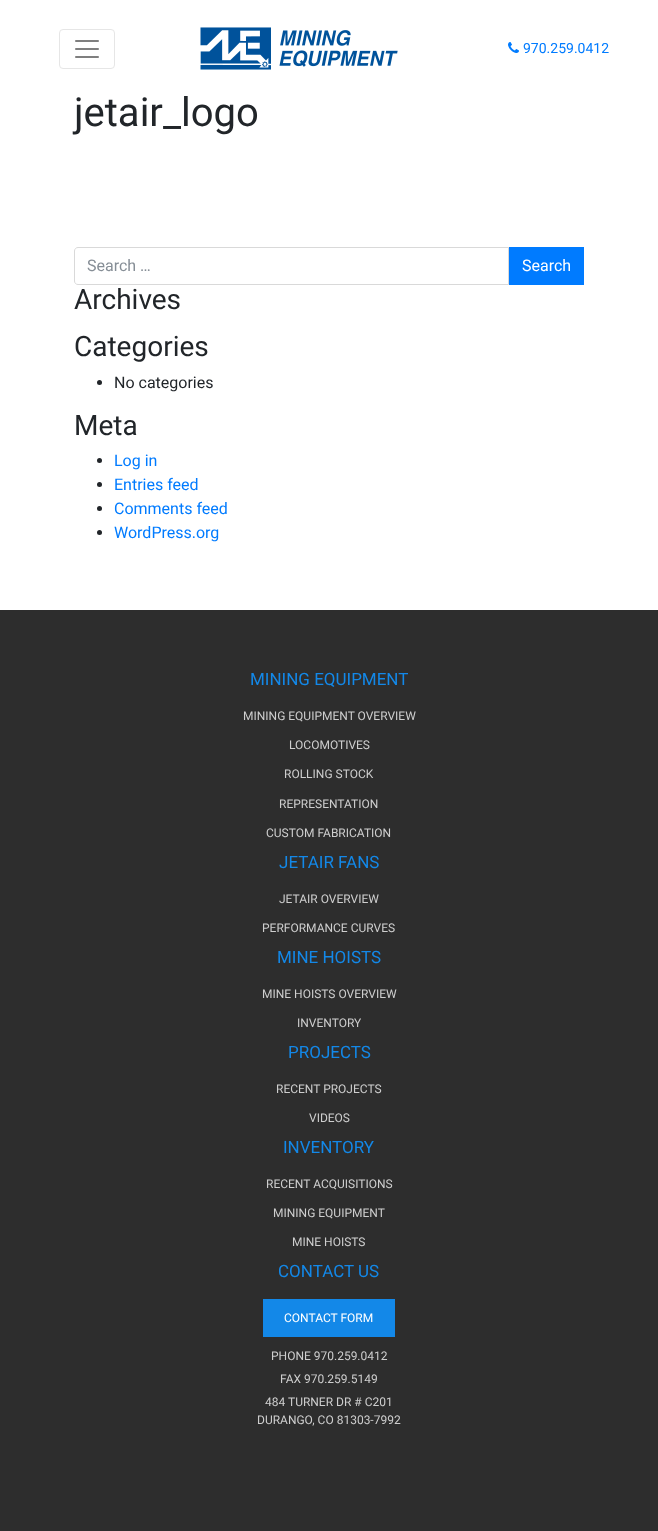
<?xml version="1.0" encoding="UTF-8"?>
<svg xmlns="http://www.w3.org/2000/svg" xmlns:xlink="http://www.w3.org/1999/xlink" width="658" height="1531">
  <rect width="100%" height="100%" fill="#ffffff" />
  <rect x="59.5" y="29.5" width="55" height="39" rx="3.5" fill="none" stroke="#e6e6e6" />
  <image x="75" y="40" width="24" height="18" xlink:href="image1.png" />
  <image x="200" y="27" width="198" height="43" xlink:href="image2.png" />
  <image x="508" y="42" width="11" height="11" xlink:href="image3.png" />
  <path d="M 78 247.5 h 430.5 v 37 h -430.5 c -2 0 -3.5 -1.5 -3.5 -3.5 v -30 c 0 -2 1.5 -3.5 3.5 -3.5 z" fill="none" stroke="#d9d9d9" />
  <rect x="509" y="247" width="75" height="38" fill="#007bff" />
  <circle cx="99.5" cy="382.5" r="2.5" fill="#212529" />
  <circle cx="99.5" cy="460.5" r="2.5" fill="#212529" />
  <circle cx="99.5" cy="484.5" r="2.5" fill="#212529" />
  <circle cx="99.5" cy="508.5" r="2.5" fill="#212529" />
  <circle cx="99.5" cy="532.5" r="2.5" fill="#212529" />
  <rect y="610" width="658" height="921" fill="#2d2d2d" />
  <rect x="263" y="1299" width="132" height="38" fill="#1388e8" />
  <text x="523" y="53" style="font-family: Roboto; font-size: 14px; fill: #007bff">970.259.0412</text>
  <text x="74" y="126" style="font-family: Roboto; font-size: 40px; fill: #212529">jetair_logo</text>
  <text x="87" y="271" style="font-family: Roboto; font-size: 16px; fill: #868e96">Search …</text>
  <text x="522" y="271" style="font-family: Roboto; font-size: 16px; fill: #ffffff">Search</text>
  <text x="74" y="309" style="font-family: Roboto; font-size: 28px; fill: #212529">Archives</text>
  <text x="74" y="356" style="font-family: Roboto; font-size: 28px; fill: #212529">Categories</text>
  <text x="114" y="388" style="font-family: Roboto; font-size: 16px; fill: #212529">No categories</text>
  <text x="74" y="435" style="font-family: Roboto; font-size: 28px; fill: #212529">Meta</text>
  <text x="114" y="466" style="font-family: Roboto; font-size: 16px; fill: #007bff">Log in</text>
  <text x="114" y="490" style="font-family: Roboto; font-size: 16px; fill: #007bff">Entries feed</text>
  <text x="114" y="514" style="font-family: Roboto; font-size: 16px; fill: #007bff">Comments feed</text>
  <text x="114" y="538" style="font-family: Roboto; font-size: 16px; fill: #007bff">WordPress.org</text>
  <text x="250" y="685" style="font-family: Roboto; font-size: 17px; fill: #1388e8">MINING EQUIPMENT</text>
  <text x="243" y="720" style="font-family: Roboto; font-size: 12px; fill: #cecece">MINING EQUIPMENT OVERVIEW</text>
  <text x="289" y="749" style="font-family: Roboto; font-size: 12px; fill: #cecece">LOCOMOTIVES</text>
  <text x="284" y="778" style="font-family: Roboto; font-size: 12px; fill: #cecece">ROLLING STOCK</text>
  <text x="279" y="808" style="font-family: Roboto; font-size: 12px; fill: #cecece">REPRESENTATION</text>
  <text x="266" y="837" style="font-family: Roboto; font-size: 12px; fill: #cecece">CUSTOM FABRICATION</text>
  <text x="279" y="868" style="font-family: Roboto; font-size: 17px; fill: #1388e8">JETAIR FANS</text>
  <text x="279" y="903" style="font-family: Roboto; font-size: 12px; fill: #cecece">JETAIR OVERVIEW</text>
  <text x="262" y="932" style="font-family: Roboto; font-size: 12px; fill: #cecece">PERFORMANCE CURVES</text>
  <text x="277" y="963" style="font-family: Roboto; font-size: 17px; fill: #1388e8">MINE HOISTS</text>
  <text x="262" y="998" style="font-family: Roboto; font-size: 12px; fill: #cecece">MINE HOISTS OVERVIEW</text>
  <text x="297" y="1027" style="font-family: Roboto; font-size: 12px; fill: #cecece">INVENTORY</text>
  <text x="288" y="1058" style="font-family: Roboto; font-size: 17px; fill: #1388e8">PROJECTS</text>
  <text x="276" y="1093" style="font-family: Roboto; font-size: 12px; fill: #cecece">RECENT PROJECTS</text>
  <text x="309" y="1122" style="font-family: Roboto; font-size: 12px; fill: #cecece">VIDEOS</text>
  <text x="283" y="1153" style="font-family: Roboto; font-size: 17px; fill: #1388e8">INVENTORY</text>
  <text x="266" y="1188" style="font-family: Roboto; font-size: 12px; fill: #cecece">RECENT ACQUISITIONS</text>
  <text x="273" y="1217" style="font-family: Roboto; font-size: 12px; fill: #cecece">MINING EQUIPMENT</text>
  <text x="292" y="1246" style="font-family: Roboto; font-size: 12px; fill: #cecece">MINE HOISTS</text>
  <text x="278" y="1277" style="font-family: Roboto; font-size: 17px; fill: #1388e8">CONTACT US</text>
  <text x="284" y="1322" style="font-family: Roboto; font-size: 12px; fill: #ffffff">CONTACT FORM</text>
  <text x="271" y="1360" style="font-family: Roboto; font-size: 12px; fill: #cecece">PHONE 970.259.0412</text>
  <text x="280" y="1383" style="font-family: Roboto; font-size: 12px; fill: #cecece">FAX 970.259.5149</text>
  <text x="265" y="1406" style="font-family: Roboto; font-size: 12px; fill: #cecece">484 TURNER DR # C201</text>
  <text x="257" y="1424" style="font-family: Roboto; font-size: 12px; fill: #cecece">DURANGO, CO 81303-7992</text>
</svg>
